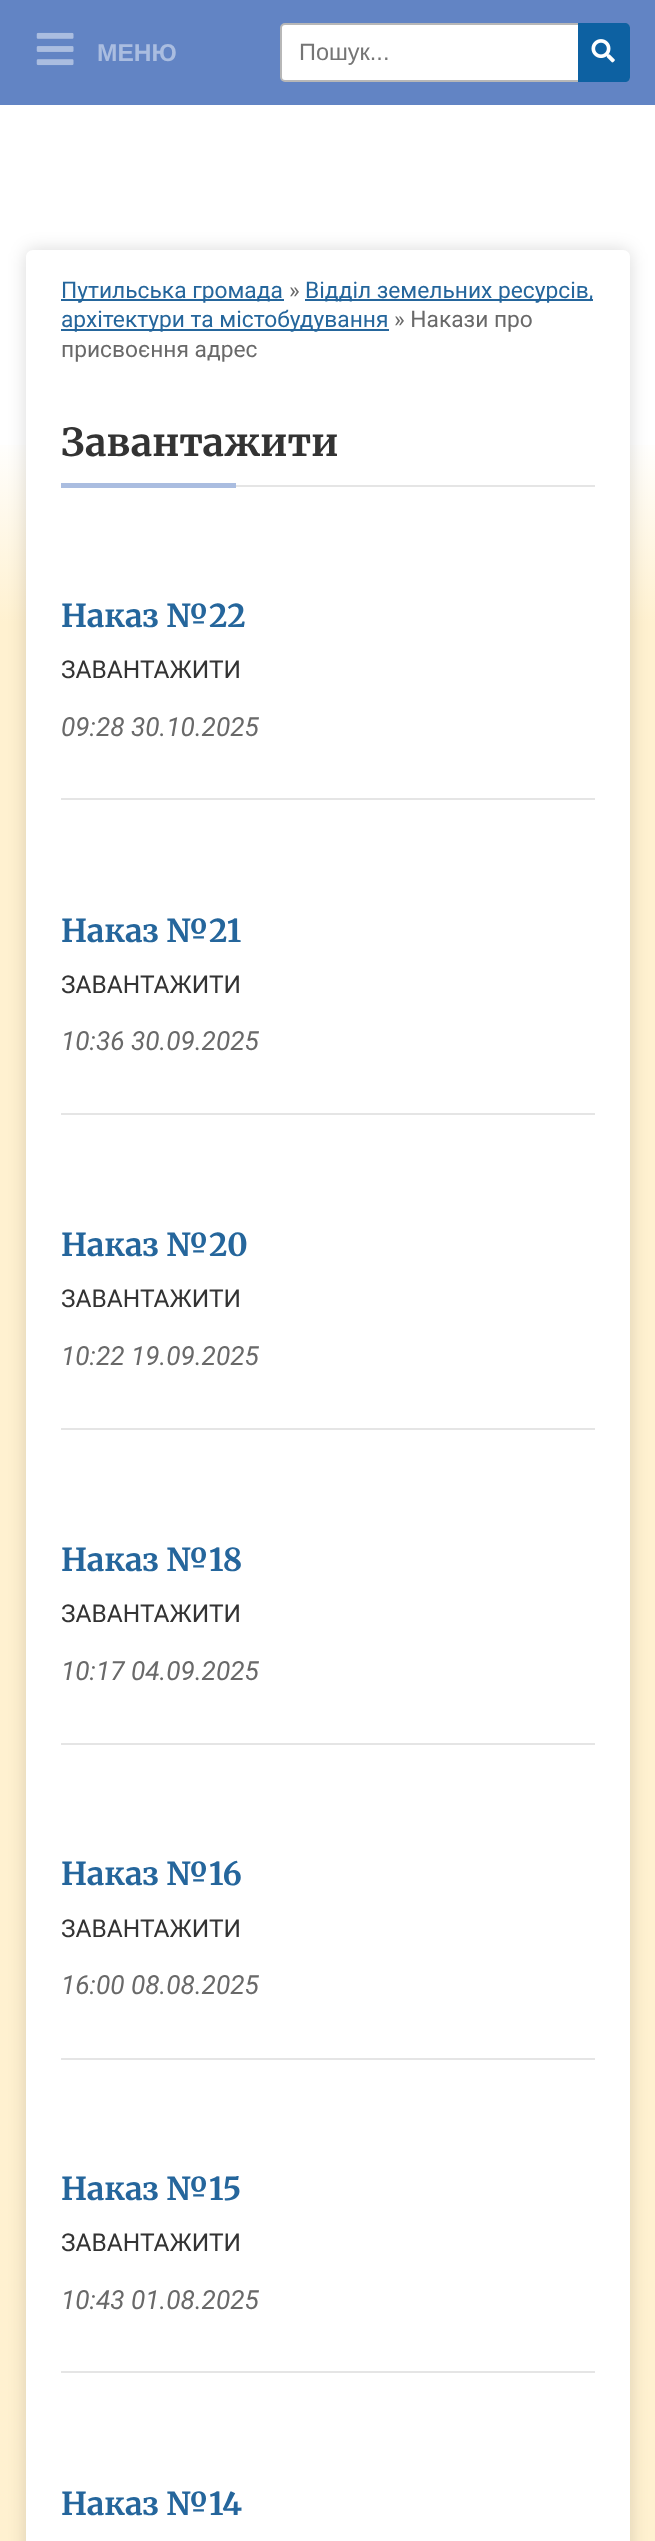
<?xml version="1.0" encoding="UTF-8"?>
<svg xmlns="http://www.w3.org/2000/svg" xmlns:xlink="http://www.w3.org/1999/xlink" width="655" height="2541">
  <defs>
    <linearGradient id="g1" gradientUnits="userSpaceOnUse" x1="328" y1="105" x2="328" y2="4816"><stop offset="0.07" stop-color="#ffffff" /><stop offset="0.11" stop-color="#fff1d0" /></linearGradient>
  </defs>
  <rect width="100%" height="100%" fill="#ffffff" />
  <rect y="445" width="655" height="2096" fill="url(#g1)" />
  <rect x="26" y="250" width="604" height="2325" rx="7" fill="#000000" fill-opacity="0.15" filter="blur(9px)" />
  <rect x="26" y="250" width="604" height="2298" rx="7" fill="#ffffff" />
  <rect width="655" height="105" fill="#6284c4" />
  <image x="36" y="32" width="38" height="34" xlink:href="image1.png" />
  <rect x="61" y="299" width="223" height="2" fill="#25669c" />
  <rect x="305" y="299" width="288" height="2" fill="#25669c" />
  <rect x="61" y="329" width="328" height="2" fill="#25669c" />
  <rect x="236" y="485" width="359" height="2" fill="#e5e5e5" />
  <rect x="61" y="483" width="175" height="5" fill="#aabde0" />
  <rect x="61" y="798" width="534" height="2" fill="#e5e5e5" />
  <rect x="61" y="1113" width="534" height="2" fill="#e5e5e5" />
  <rect x="61" y="1428" width="534" height="2" fill="#e5e5e5" />
  <rect x="61" y="1743" width="534" height="2" fill="#e5e5e5" />
  <rect x="61" y="2058" width="534" height="2" fill="#e5e5e5" />
  <rect x="61" y="2371" width="534" height="2" fill="#e5e5e5" />
  <rect x="281" y="24" width="348" height="57" rx="4" fill="#ffffff" stroke="#b7b7b7" stroke-width="2" />
  <path d="M 578 23 h 47 c 3 0 5 2 5 5 v 49 c 0 3 -2 5 -5 5 h -47 z" fill="#0d61a2" />
  <image x="591" y="39" width="24" height="24" xlink:href="image2.png" />
  <text x="97" y="61" style="font-family: Liberation Sans; font-size: 24.5px; font-weight: bold; fill: #aabde0">МЕНЮ</text>
  <text x="61" y="298" style="font-family: Roboto; font-size: 22.75px; fill: #25669c">Путильська громада</text>
  <text x="289" y="298" style="font-family: Roboto; font-size: 22.75px; fill: #696969">»</text>
  <text x="305" y="298" style="font-family: Roboto; font-size: 22.75px; fill: #25669c">Відділ земельних ресурсів,</text>
  <text x="61" y="327" style="font-family: Roboto; font-size: 22.75px; fill: #25669c">архітектури та містобудування</text>
  <text x="394" y="327" style="font-family: Roboto; font-size: 22.75px; fill: #696969">» Накази про</text>
  <text x="61" y="357" style="font-family: Roboto; font-size: 22.75px; fill: #696969">присвоєння адрес</text>
  <text x="61" y="456" style="font-family: Merriweather; font-size: 38.5px; font-weight: 300; fill: #333333">Завантажити</text>
  <text x="61" y="627" style="font-family: Merriweather; font-size: 31.5px; font-weight: 300; fill: #25669c">Наказ №22</text>
  <text x="61" y="678" style="font-family: Roboto; font-size: 24.5px; fill: #333333">ЗАВАНТАЖИТИ</text>
  <text x="61" y="736" style="font-family: Roboto; font-size: 26.25px; font-style: italic; fill: #696969">09:28 30.10.2025</text>
  <text x="61" y="942" style="font-family: Merriweather; font-size: 31.5px; font-weight: 300; fill: #25669c">Наказ №21</text>
  <text x="61" y="993" style="font-family: Roboto; font-size: 24.5px; fill: #333333">ЗАВАНТАЖИТИ</text>
  <text x="61" y="1050" style="font-family: Roboto; font-size: 26.25px; font-style: italic; fill: #696969">10:36 30.09.2025</text>
  <text x="61" y="1256" style="font-family: Merriweather; font-size: 31.5px; font-weight: 300; fill: #25669c">Наказ №20</text>
  <text x="61" y="1307" style="font-family: Roboto; font-size: 24.5px; fill: #333333">ЗАВАНТАЖИТИ</text>
  <text x="61" y="1365" style="font-family: Roboto; font-size: 26.25px; font-style: italic; fill: #696969">10:22 19.09.2025</text>
  <text x="61" y="1571" style="font-family: Merriweather; font-size: 31.5px; font-weight: 300; fill: #25669c">Наказ №18</text>
  <text x="61" y="1622" style="font-family: Roboto; font-size: 24.5px; fill: #333333">ЗАВАНТАЖИТИ</text>
  <text x="61" y="1680" style="font-family: Roboto; font-size: 26.25px; font-style: italic; fill: #696969">10:17 04.09.2025</text>
  <text x="61" y="1885" style="font-family: Merriweather; font-size: 31.5px; font-weight: 300; fill: #25669c">Наказ №16</text>
  <text x="61" y="1937" style="font-family: Roboto; font-size: 24.5px; fill: #333333">ЗАВАНТАЖИТИ</text>
  <text x="61" y="1994" style="font-family: Roboto; font-size: 26.25px; font-style: italic; fill: #696969">16:00 08.08.2025</text>
  <text x="61" y="2200" style="font-family: Merriweather; font-size: 31.5px; font-weight: 300; fill: #25669c">Наказ №15</text>
  <text x="61" y="2251" style="font-family: Roboto; font-size: 24.5px; fill: #333333">ЗАВАНТАЖИТИ</text>
  <text x="61" y="2309" style="font-family: Roboto; font-size: 26.25px; font-style: italic; fill: #696969">10:43 01.08.2025</text>
  <text x="61" y="2515" style="font-family: Merriweather; font-size: 31.5px; font-weight: 300; fill: #25669c">Наказ №14</text>
  <text x="299" y="60" style="font-family: Liberation Sans; font-size: 23.5px; fill: #757575">Пошук...</text>
</svg>
